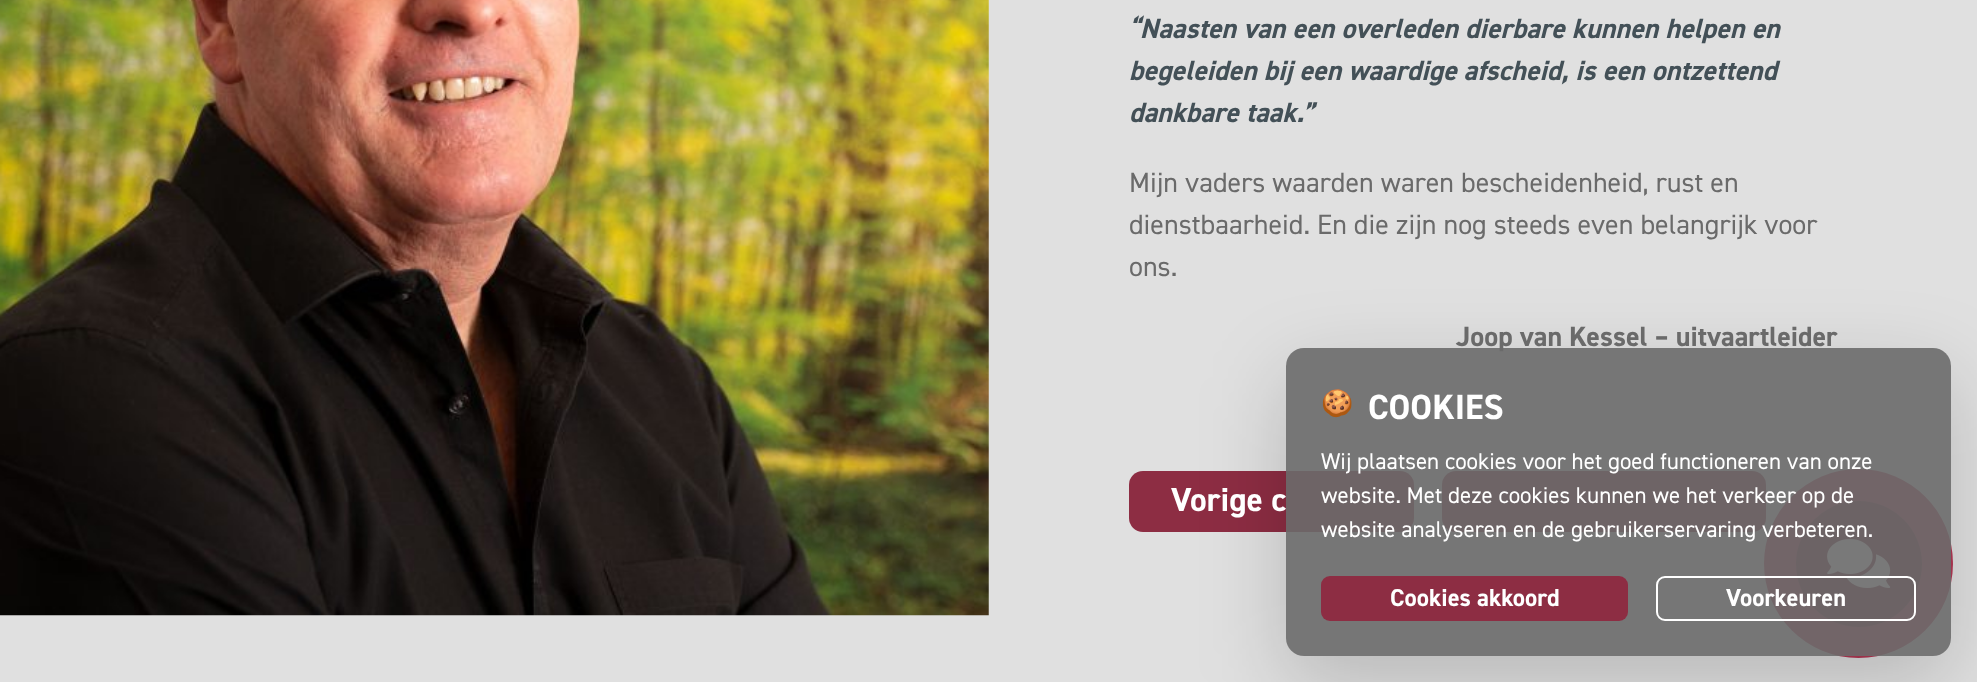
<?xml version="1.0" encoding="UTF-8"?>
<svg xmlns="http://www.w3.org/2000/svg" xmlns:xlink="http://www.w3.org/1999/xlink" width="1977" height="682">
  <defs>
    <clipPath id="clip1"><path d="M 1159 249 h 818 v 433 h -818 z m 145 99 h 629 c 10 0 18 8 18 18 v 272 c 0 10 -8 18 -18 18 h -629 c -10 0 -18 -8 -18 -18 v -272 c 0 -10 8 -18 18 -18 z" clip-rule="evenodd" /></clipPath>
  </defs>
  <rect width="100%" height="100%" fill="#e0e0e0" />
  <image x="0" y="0" width="989" height="616" xlink:href="image1.png" />
  <rect x="1129" y="471" width="285" height="61" rx="14" fill="#8d2d43" />
  <rect x="1442" y="471" width="324" height="61" rx="14" fill="#8d2d43" />
  <circle cx="1858.5" cy="563.5" r="94.5" fill="#b43955" />
  <circle cx="1859" cy="564" r="63" fill="#7a273a" />
  <image x="1827" y="539" width="64" height="49" xlink:href="image2.png" />
  <g clip-path="url(#clip1)">
    <rect x="1286" y="376" width="665" height="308" rx="18" fill="#000000" fill-opacity="0.18" filter="blur(42px)" />
  </g>
  <text x="1129" y="38" style="font-family: 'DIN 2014'; font-size: 28px; font-weight: bold; font-style: italic; fill: #435057">“Naasten van een overleden dierbare kunnen helpen en</text>
  <text x="1129" y="80" style="font-family: 'DIN 2014'; font-size: 28px; font-weight: bold; font-style: italic; fill: #435057">begeleiden bij een waardige afscheid, is een ontzettend</text>
  <text x="1129" y="122" style="font-family: 'DIN 2014'; font-size: 28px; font-weight: bold; font-style: italic; fill: #435057">dankbare taak.”</text>
  <text x="1129" y="192" style="font-family: 'DIN 2014'; font-size: 28px; fill: #6a6a6a">Mijn vaders waarden waren bescheidenheid, rust en</text>
  <text x="1129" y="234" style="font-family: 'DIN 2014'; font-size: 28px; fill: #6a6a6a">dienstbaarheid. En die zijn nog steeds even belangrijk voor</text>
  <text x="1129" y="276" style="font-family: 'DIN 2014'; font-size: 28px; fill: #6a6a6a">ons.</text>
  <text x="1456" y="346" style="font-family: 'DIN 2014'; font-size: 28px; font-weight: bold; fill: #6a6a6a">Joop van Kessel – uitvaartleider</text>
  <text x="1171" y="511" style="font-family: 'DIN 2014'; font-size: 33.5px; font-weight: bold; fill: #ffffff">Vorige c</text>
  <rect x="1286" y="348" width="665" height="308" rx="18" fill="#6a6a6a" fill-opacity="0.9" />
  <text x="1321" y="412" style="font-family: Noto Color Emoji; font-size: 26px; fill: #ffffff">🍪</text>
  <text x="1368" y="419" style="font-family: 'DIN 2014'; font-size: 35px; font-weight: bold; fill: #ffffff">COOKIES</text>
  <text x="1321" y="469" style="font-family: 'DIN 2014'; font-size: 23px; fill: #ffffff">Wij plaatsen cookies voor het goed functioneren van onze</text>
  <text x="1321" y="503" style="font-family: 'DIN 2014'; font-size: 23px; fill: #ffffff">website. Met deze cookies kunnen we het verkeer op de</text>
  <text x="1321" y="537" style="font-family: 'DIN 2014'; font-size: 23px; fill: #ffffff">website analyseren en de gebruikerservaring verbeteren.</text>
  <rect x="1321" y="576" width="307" height="45" rx="9" fill="#8d2d43" />
  <text x="1390" y="606" style="font-family: 'DIN 2014'; font-size: 24.5px; font-weight: bold; fill: #ffffff">Cookies akkoord</text>
  <rect x="1657" y="577" width="258" height="43" rx="8" fill="none" stroke="#ffffff" stroke-width="2" />
  <text x="1726" y="606" style="font-family: 'DIN 2014'; font-size: 24.5px; font-weight: bold; fill: #ffffff">Voorkeuren</text>
</svg>
